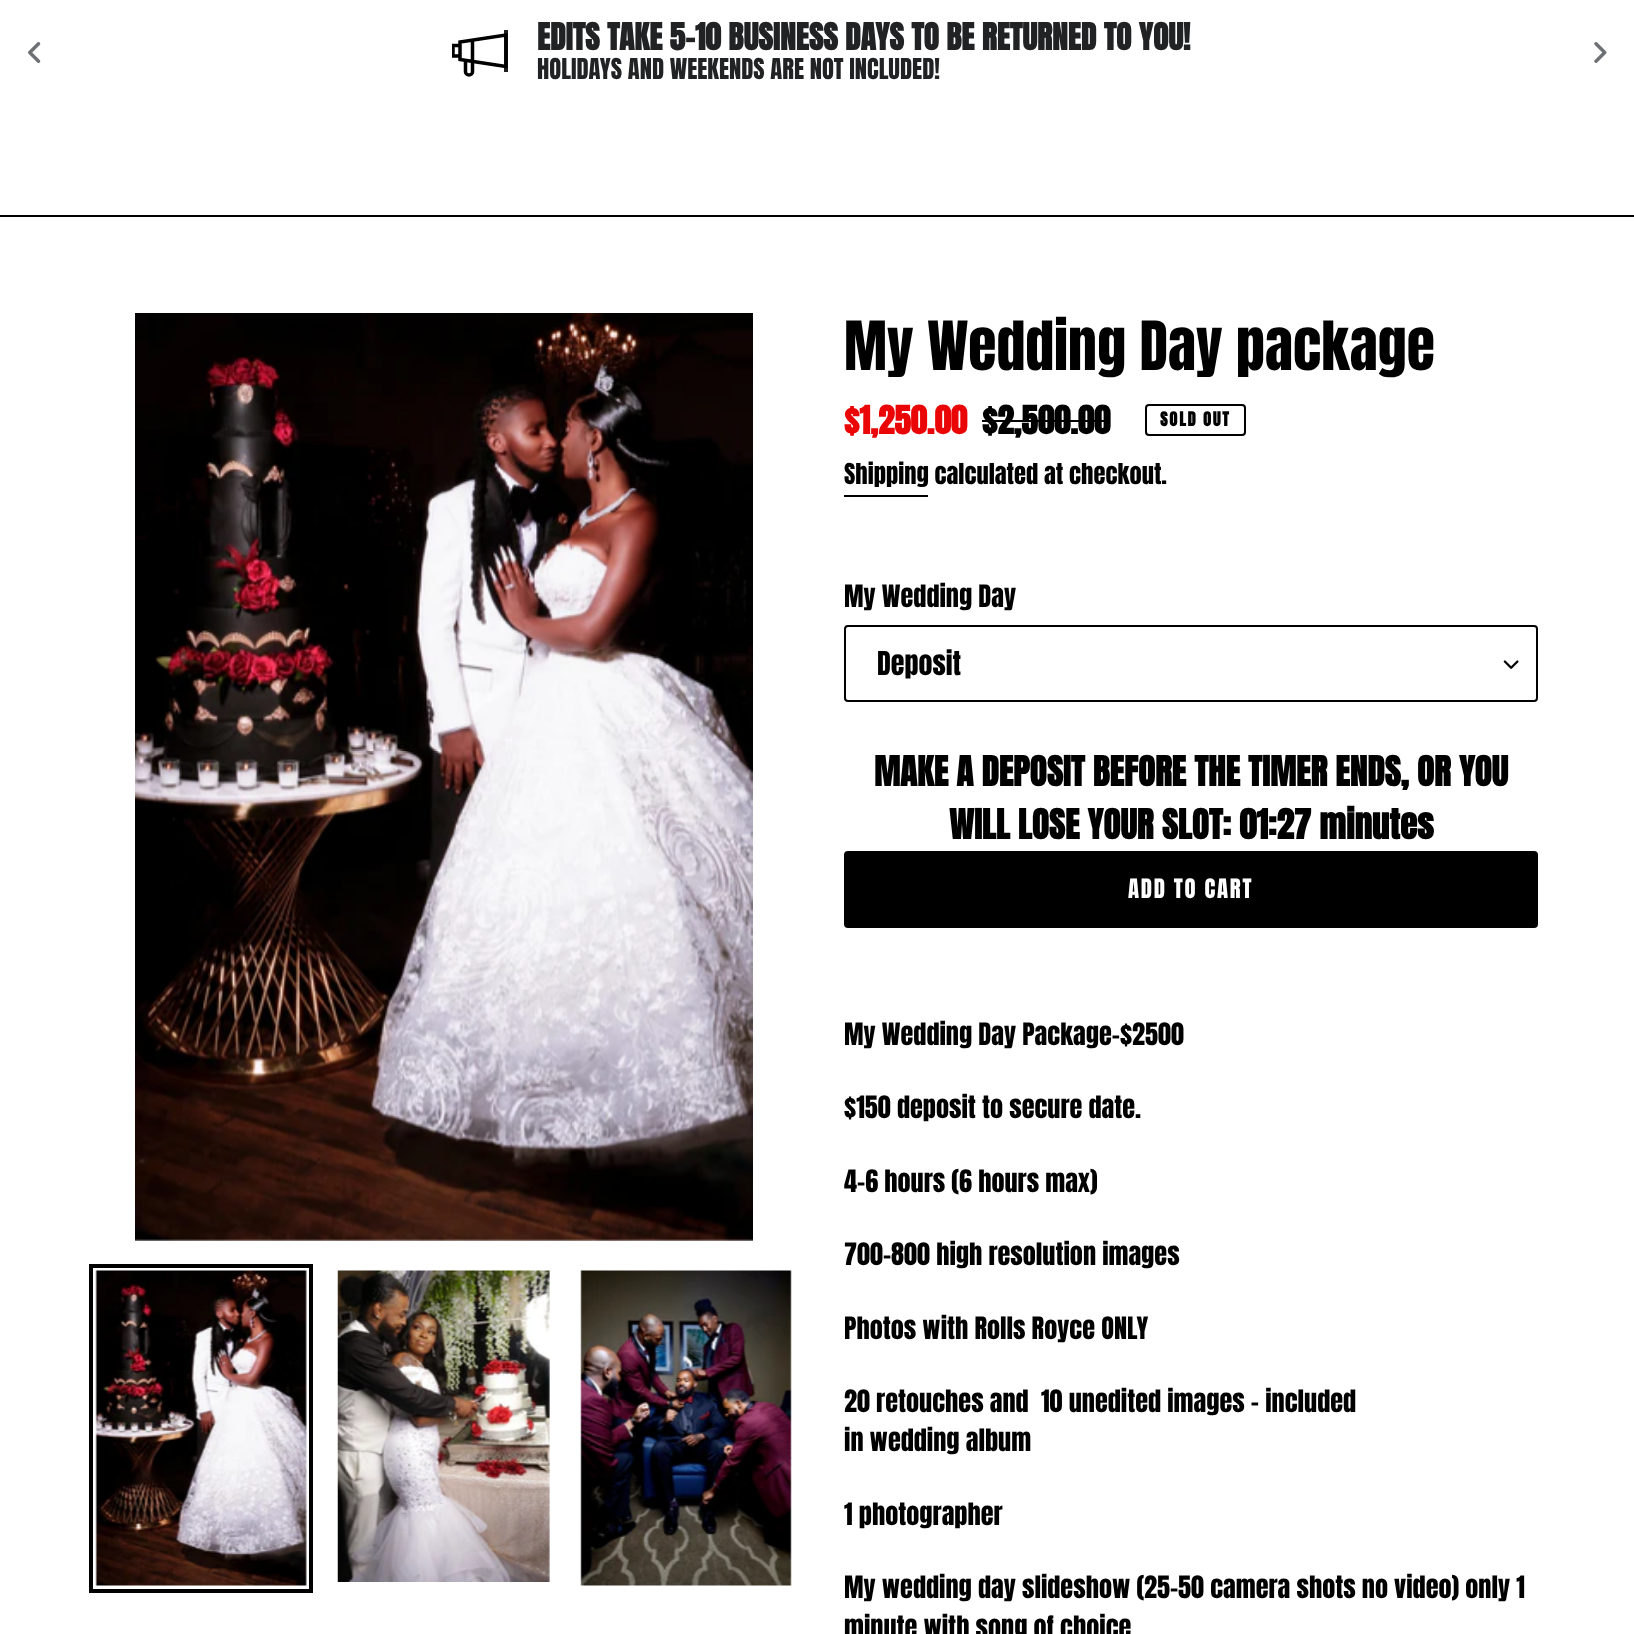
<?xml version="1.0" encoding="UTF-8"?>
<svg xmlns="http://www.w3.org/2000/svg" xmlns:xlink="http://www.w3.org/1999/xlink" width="1634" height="1634">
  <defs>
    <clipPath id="clip1"><rect x="452" y="25" width="56" height="56" /></clipPath>
  </defs>
  <rect width="100%" height="100%" fill="#ffffff" />
  <path d="M 506 66.5 l -46 -7 v -17.5 l 46 -7 z m -33.5 -26.5 v 21" fill="none" stroke="#000000" stroke-width="3.5" />
  <rect x="504" y="30" width="4" height="42" fill="#000000" fill-opacity="0.88" />
  <g clip-path="url(#clip1)">
    <path d="M 460 45.5 h -7 v 10.5 h 7" fill="none" stroke="#000000" stroke-width="3.5" />
  </g>
  <path d="M 472.5 61 v 11 c 0 1.5 -1.5 3 -3.5 3 c -2 0 -3.5 -1.5 -3.5 -3 v -11.5" fill="none" stroke="#000000" stroke-width="3.5" />
  <image x="28" y="42" width="13" height="21" xlink:href="image1.png" />
  <image x="1594" y="42" width="13" height="21" xlink:href="image2.png" />
  <rect y="215" width="1634" height="2" fill="#000000" />
  <image x="135" y="313" width="618" height="928" xlink:href="image3.png" />
  <rect x="91" y="1266" width="220" height="325" fill="none" stroke="#000000" stroke-width="4" />
  <image x="95" y="1270" width="212" height="316" xlink:href="image4.png" />
  <image x="337" y="1270" width="213" height="312" xlink:href="image5.png" />
  <image x="580" y="1270" width="212" height="316" xlink:href="image6.png" />
  <rect x="982" y="420" width="128" height="2" fill="#000000" />
  <rect x="1146" y="405" width="99" height="30" rx="3" fill="none" stroke="#000000" stroke-width="2" />
  <rect x="844" y="495" width="84" height="2" fill="#000000" />
  <image x="1503" y="660" width="16" height="9" xlink:href="image7.png" />
  <rect x="845" y="626" width="692" height="75" rx="3" fill="none" stroke="#000000" stroke-width="2" />
  <rect x="844" y="851" width="694" height="77" rx="4" fill="#000000" />
  <text x="537" y="50" style="font-family: Anton; font-size: 31.5px; font-weight: bold; fill: #202223">EDITS TAKE 5-10 BUSINESS DAYS TO BE RETURNED TO YOU!</text>
  <text x="537" y="79" style="font-family: Anton; font-size: 24.5px; fill: #202223">HOLIDAYS AND WEEKENDS ARE NOT INCLUDED!</text>
  <text x="844" y="370" style="font-family: Anton; font-size: 57.75px; fill: #000000">My Wedding Day package</text>
  <text x="844" y="434" style="font-family: Anton; font-size: 33px; font-weight: bold; fill: #ea0606">$1,250.00</text>
  <text x="982" y="434" style="font-family: Anton; font-size: 33px; font-weight: bold; fill: #000000">$2,500.00</text>
  <text x="1160" y="426" style="font-family: Anton; font-size: 16.5px; font-weight: bold; letter-spacing: 1.75px; fill: #000000">SOLD OUT</text>
  <text x="844" y="484" style="font-family: Anton; font-size: 24.5px; fill: #000000">Shipping calculated at checkout.</text>
  <text x="844" y="607" style="font-family: Anton; font-size: 26.25px; fill: #000000">My Wedding Day</text>
  <text x="877" y="675" style="font-family: Anton; font-size: 28px; fill: #000000">Deposit</text>
  <text x="874" y="786" style="font-family: Anton; font-size: 35px; font-weight: bold; fill: #000000">MAKE A DEPOSIT BEFORE THE TIMER ENDS, OR YOU</text>
  <text x="949" y="839" style="font-family: Anton; font-size: 35px; font-weight: bold; fill: #000000">WILL LOSE YOUR SLOT: 01:27 minutes</text>
  <text x="1128" y="898" style="font-family: Anton; font-size: 22.75px; letter-spacing: 1.75px; fill: #ffffff">ADD TO CART</text>
  <text x="844" y="1045" style="font-family: Anton; font-size: 26.25px; fill: #000000">My Wedding Day Package-$2500</text>
  <text x="844" y="1118" style="font-family: Anton; font-size: 26.25px; fill: #000000">$150 deposit to secure date.</text>
  <text x="844" y="1192" style="font-family: Anton; font-size: 26.25px; fill: #000000">4-6 hours (6 hours max)</text>
  <text x="844" y="1265" style="font-family: Anton; font-size: 26.25px; fill: #000000">700-800 high resolution images</text>
  <text x="844" y="1339" style="font-family: Anton; font-size: 26.25px; fill: #000000">Photos with Rolls Royce ONLY</text>
  <text x="844" y="1412" style="font-family: Anton; font-size: 26.25px; fill: #000000" xml:space="preserve">20 retouches and  10 unedited images - included</text>
  <text x="844" y="1451" style="font-family: Anton; font-size: 26.25px; fill: #000000">in wedding album</text>
  <text x="844" y="1525" style="font-family: Anton; font-size: 26.25px; fill: #000000">1 photographer</text>
  <text x="844" y="1598" style="font-family: Anton; font-size: 26.25px; fill: #000000">My wedding day slideshow (25-50 camera shots no video) only 1</text>
  <text x="844" y="1638" style="font-family: Anton; font-size: 26.25px; fill: #000000">minute with song of choice</text>
</svg>
